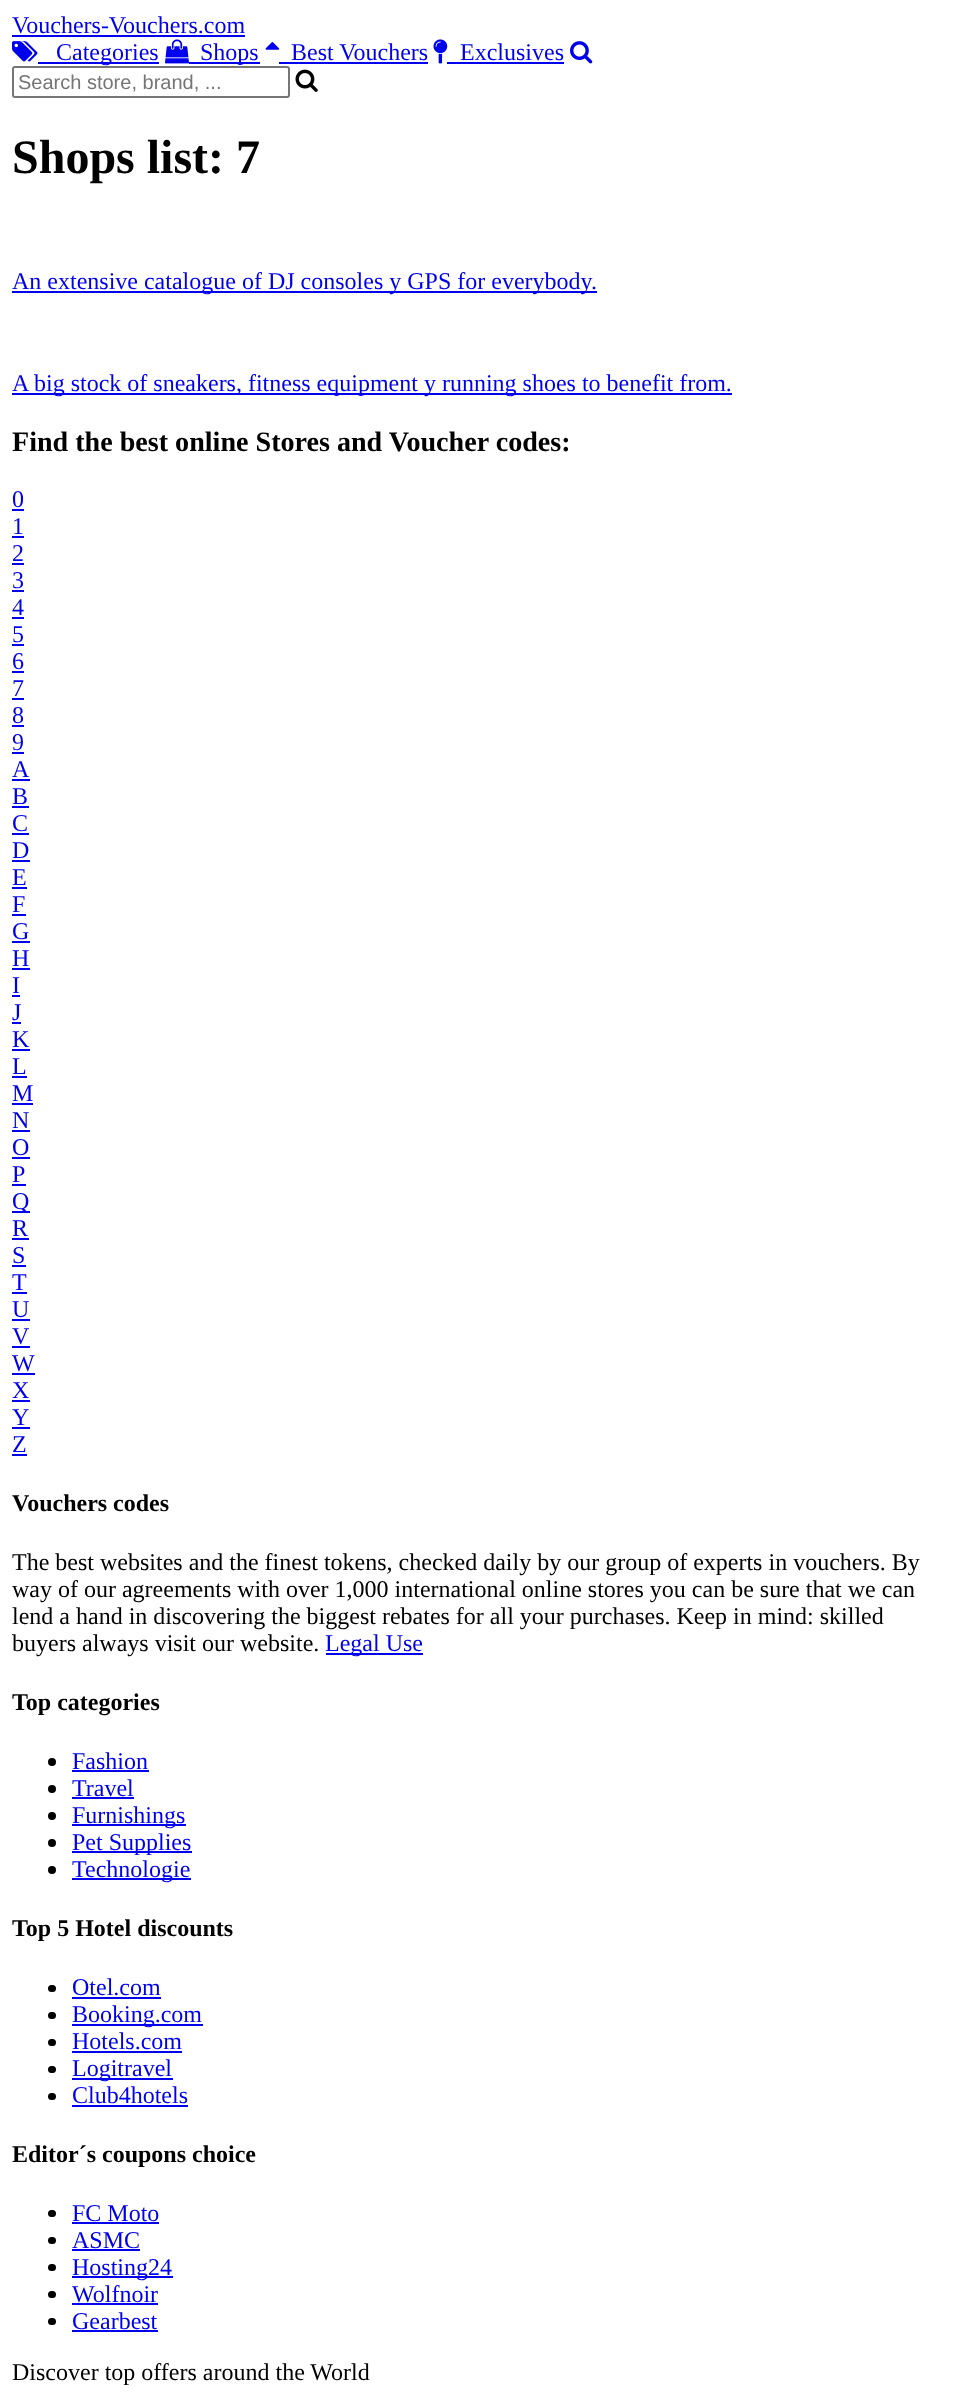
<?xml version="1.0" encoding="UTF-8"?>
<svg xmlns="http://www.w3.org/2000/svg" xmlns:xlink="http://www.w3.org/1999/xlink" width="963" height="2408">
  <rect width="100%" height="100%" fill="#ffffff" />
  <rect x="12" y="35" width="233" height="2" fill="#0000ee" />
  <image x="12" y="41" width="26" height="21" xlink:href="image1.png" />
  <rect x="38" y="62" width="121" height="2" fill="#0000ee" />
  <image x="165" y="39" width="24" height="25" xlink:href="image2.png" />
  <rect x="189" y="62" width="71" height="2" fill="#0000ee" />
  <image x="265" y="42" width="15" height="8" xlink:href="image3.png" />
  <rect x="279" y="62" width="149" height="2" fill="#0000ee" />
  <image x="433" y="39" width="15" height="25" xlink:href="image4.png" />
  <rect x="447" y="62" width="117" height="2" fill="#0000ee" />
  <image x="570" y="41" width="23" height="23" xlink:href="image5.png" />
  <rect x="13" y="67" width="276" height="30" rx="2" fill="none" stroke="#767676" stroke-width="2" />
  <image x="295" y="69" width="23" height="23" xlink:href="image6.png" />
  <rect x="12" y="291" width="585" height="2" fill="#0000ee" />
  <rect x="12" y="393" width="720" height="2" fill="#0000ee" />
  <rect x="12" y="509" width="12" height="2" fill="#0000ee" />
  <rect x="12" y="536" width="12" height="2" fill="#0000ee" />
  <rect x="12" y="563" width="12" height="2" fill="#0000ee" />
  <rect x="12" y="590" width="12" height="2" fill="#0000ee" />
  <rect x="12" y="617" width="12" height="2" fill="#0000ee" />
  <rect x="12" y="644" width="12" height="2" fill="#0000ee" />
  <rect x="12" y="671" width="12" height="2" fill="#0000ee" />
  <rect x="12" y="698" width="12" height="2" fill="#0000ee" />
  <rect x="12" y="725" width="12" height="2" fill="#0000ee" />
  <rect x="12" y="752" width="12" height="2" fill="#0000ee" />
  <rect x="12" y="779" width="18" height="2" fill="#0000ee" />
  <rect x="12" y="806" width="17" height="2" fill="#0000ee" />
  <rect x="12" y="833" width="17" height="2" fill="#0000ee" />
  <rect x="12" y="860" width="18" height="2" fill="#0000ee" />
  <rect x="12" y="887" width="15" height="2" fill="#0000ee" />
  <rect x="12" y="914" width="14" height="2" fill="#0000ee" />
  <rect x="12" y="941" width="18" height="2" fill="#0000ee" />
  <rect x="12" y="968" width="18" height="2" fill="#0000ee" />
  <rect x="12" y="995" width="8" height="2" fill="#0000ee" />
  <rect x="12" y="1022" width="9" height="2" fill="#0000ee" />
  <rect x="12" y="1049" width="18" height="2" fill="#0000ee" />
  <rect x="12" y="1076" width="15" height="2" fill="#0000ee" />
  <rect x="12" y="1103" width="21" height="2" fill="#0000ee" />
  <rect x="12" y="1130" width="18" height="2" fill="#0000ee" />
  <rect x="12" y="1157" width="18" height="2" fill="#0000ee" />
  <rect x="12" y="1184" width="14" height="2" fill="#0000ee" />
  <rect x="12" y="1211" width="18" height="2" fill="#0000ee" />
  <rect x="12" y="1238" width="17" height="2" fill="#0000ee" />
  <rect x="12" y="1265" width="14" height="2" fill="#0000ee" />
  <rect x="12" y="1292" width="15" height="2" fill="#0000ee" />
  <rect x="12" y="1319" width="18" height="2" fill="#0000ee" />
  <rect x="12" y="1346" width="18" height="2" fill="#0000ee" />
  <rect x="12" y="1373" width="23" height="2" fill="#0000ee" />
  <rect x="12" y="1400" width="18" height="2" fill="#0000ee" />
  <rect x="12" y="1427" width="18" height="2" fill="#0000ee" />
  <rect x="12" y="1454" width="15" height="2" fill="#0000ee" />
  <rect x="326" y="1653" width="97" height="2" fill="#0000ee" />
  <circle cx="52" cy="1762" r="4" fill="#000000" />
  <rect x="72" y="1770" width="77" height="2" fill="#0000ee" />
  <circle cx="52" cy="1789" r="4" fill="#000000" />
  <rect x="72" y="1797" width="62" height="2" fill="#0000ee" />
  <circle cx="52" cy="1816" r="4" fill="#000000" />
  <rect x="72" y="1824" width="114" height="2" fill="#0000ee" />
  <circle cx="52" cy="1843" r="4" fill="#000000" />
  <rect x="72" y="1851" width="120" height="2" fill="#0000ee" />
  <circle cx="52" cy="1870" r="4" fill="#000000" />
  <rect x="72" y="1878" width="119" height="2" fill="#0000ee" />
  <rect x="48" y="1985" width="8" height="7" rx="3.5" fill="#000000" />
  <rect x="72" y="1997" width="89" height="2" fill="#0000ee" />
  <rect x="48" y="2012" width="8" height="7" rx="3.5" fill="#000000" />
  <rect x="72" y="2024" width="131" height="2" fill="#0000ee" />
  <rect x="48" y="2039" width="8" height="7" rx="3.5" fill="#000000" />
  <rect x="72" y="2051" width="110" height="2" fill="#0000ee" />
  <rect x="48" y="2066" width="8" height="7" rx="3.5" fill="#000000" />
  <rect x="72" y="2078" width="101" height="2" fill="#0000ee" />
  <rect x="48" y="2093" width="8" height="7" rx="3.5" fill="#000000" />
  <rect x="72" y="2105" width="116" height="2" fill="#0000ee" />
  <rect x="48" y="2210" width="8" height="7" rx="3.5" fill="#000000" />
  <rect x="72" y="2222" width="87" height="2" fill="#0000ee" />
  <rect x="48" y="2237" width="8" height="7" rx="3.5" fill="#000000" />
  <rect x="72" y="2249" width="68" height="2" fill="#0000ee" />
  <rect x="48" y="2264" width="8" height="7" rx="3.5" fill="#000000" />
  <rect x="72" y="2276" width="101" height="2" fill="#0000ee" />
  <rect x="48" y="2291" width="8" height="7" rx="3.5" fill="#000000" />
  <rect x="72" y="2303" width="86" height="2" fill="#0000ee" />
  <rect x="48" y="2318" width="8" height="7" rx="3.5" fill="#000000" />
  <rect x="72" y="2330" width="86" height="2" fill="#0000ee" />
  <text x="12" y="33" style="font-family: Liberation Serif; font-size: 24px; fill: #0000ee">Vouchers-Vouchers.com</text>
  <text x="56" y="60" style="font-family: Liberation Serif; font-size: 24px; fill: #0000ee">Categories</text>
  <text x="200" y="60" style="font-family: Liberation Serif; font-size: 24px; fill: #0000ee">Shops</text>
  <text x="291" y="60" style="font-family: Liberation Serif; font-size: 24px; fill: #0000ee">Best Vouchers</text>
  <text x="460" y="60" style="font-family: Liberation Serif; font-size: 24px; fill: #0000ee">Exclusives</text>
  <text x="18" y="89" style="font-family: Liberation Sans; font-size: 20px; fill: #757575">Search store, brand, ...</text>
  <text x="12" y="173" style="font-family: Liberation Serif; font-size: 48px; font-weight: bold; fill: #000000">Shops list: 7</text>
  <text x="12" y="289" style="font-family: Liberation Serif; font-size: 24px; fill: #0000ee">An extensive catalogue of DJ consoles y GPS for everybody.</text>
  <text x="12" y="391" style="font-family: Liberation Serif; font-size: 24px; fill: #0000ee">A big stock of sneakers, fitness equipment y running shoes to benefit from.</text>
  <text x="12" y="451" style="font-family: Liberation Serif; font-size: 28.1px; font-weight: bold; fill: #000000">Find the best online Stores and Voucher codes:</text>
  <text x="12" y="507" style="font-family: Liberation Serif; font-size: 24px; fill: #0000ee">0</text>
  <text x="12" y="534" style="font-family: Liberation Serif; font-size: 24px; fill: #0000ee">1</text>
  <text x="12" y="561" style="font-family: Liberation Serif; font-size: 24px; fill: #0000ee">2</text>
  <text x="12" y="588" style="font-family: Liberation Serif; font-size: 24px; fill: #0000ee">3</text>
  <text x="12" y="615" style="font-family: Liberation Serif; font-size: 24px; fill: #0000ee">4</text>
  <text x="12" y="642" style="font-family: Liberation Serif; font-size: 24px; fill: #0000ee">5</text>
  <text x="12" y="669" style="font-family: Liberation Serif; font-size: 24px; fill: #0000ee">6</text>
  <text x="12" y="696" style="font-family: Liberation Serif; font-size: 24px; fill: #0000ee">7</text>
  <text x="12" y="723" style="font-family: Liberation Serif; font-size: 24px; fill: #0000ee">8</text>
  <text x="12" y="750" style="font-family: Liberation Serif; font-size: 24px; fill: #0000ee">9</text>
  <text x="12" y="777" style="font-family: Liberation Serif; font-size: 24px; fill: #0000ee">A</text>
  <text x="12" y="804" style="font-family: Liberation Serif; font-size: 24px; fill: #0000ee">B</text>
  <text x="12" y="831" style="font-family: Liberation Serif; font-size: 24px; fill: #0000ee">C</text>
  <text x="12" y="858" style="font-family: Liberation Serif; font-size: 24px; fill: #0000ee">D</text>
  <text x="12" y="885" style="font-family: Liberation Serif; font-size: 24px; fill: #0000ee">E</text>
  <text x="12" y="912" style="font-family: Liberation Serif; font-size: 24px; fill: #0000ee">F</text>
  <text x="12" y="939" style="font-family: Liberation Serif; font-size: 24px; fill: #0000ee">G</text>
  <text x="12" y="966" style="font-family: Liberation Serif; font-size: 24px; fill: #0000ee">H</text>
  <text x="12" y="993" style="font-family: Liberation Serif; font-size: 24px; fill: #0000ee">I</text>
  <text x="12" y="1020" style="font-family: Liberation Serif; font-size: 24px; fill: #0000ee">J</text>
  <text x="12" y="1047" style="font-family: Liberation Serif; font-size: 24px; fill: #0000ee">K</text>
  <text x="12" y="1074" style="font-family: Liberation Serif; font-size: 24px; fill: #0000ee">L</text>
  <text x="12" y="1101" style="font-family: Liberation Serif; font-size: 24px; fill: #0000ee">M</text>
  <text x="12" y="1128" style="font-family: Liberation Serif; font-size: 24px; fill: #0000ee">N</text>
  <text x="12" y="1155" style="font-family: Liberation Serif; font-size: 24px; fill: #0000ee">O</text>
  <text x="12" y="1182" style="font-family: Liberation Serif; font-size: 24px; fill: #0000ee">P</text>
  <text x="12" y="1209" style="font-family: Liberation Serif; font-size: 24px; fill: #0000ee">Q</text>
  <text x="12" y="1236" style="font-family: Liberation Serif; font-size: 24px; fill: #0000ee">R</text>
  <text x="12" y="1263" style="font-family: Liberation Serif; font-size: 24px; fill: #0000ee">S</text>
  <text x="12" y="1290" style="font-family: Liberation Serif; font-size: 24px; fill: #0000ee">T</text>
  <text x="12" y="1317" style="font-family: Liberation Serif; font-size: 24px; fill: #0000ee">U</text>
  <text x="12" y="1344" style="font-family: Liberation Serif; font-size: 24px; fill: #0000ee">V</text>
  <text x="12" y="1371" style="font-family: Liberation Serif; font-size: 24px; fill: #0000ee">W</text>
  <text x="12" y="1398" style="font-family: Liberation Serif; font-size: 24px; fill: #0000ee">X</text>
  <text x="12" y="1425" style="font-family: Liberation Serif; font-size: 24px; fill: #0000ee">Y</text>
  <text x="12" y="1452" style="font-family: Liberation Serif; font-size: 24px; fill: #0000ee">Z</text>
  <text x="12" y="1511" style="font-family: Liberation Serif; font-size: 24px; font-weight: bold; fill: #000000">Vouchers codes</text>
  <text x="12" y="1570" style="font-family: Liberation Serif; font-size: 24px; fill: #000000">The best websites and the finest tokens, checked daily by our group of experts in vouchers. By</text>
  <text x="12" y="1597" style="font-family: Liberation Serif; font-size: 24px; fill: #000000">way of our agreements with over 1,000 international online stores you can be sure that we can</text>
  <text x="12" y="1624" style="font-family: Liberation Serif; font-size: 24px; fill: #000000">lend a hand in discovering the biggest rebates for all your purchases. Keep in mind: skilled</text>
  <text x="12" y="1651" style="font-family: Liberation Serif; font-size: 24px; fill: #000000">buyers always visit our website.</text>
  <text x="325" y="1651" style="font-family: Liberation Serif; font-size: 24px; fill: #0000ee">Legal Use</text>
  <text x="12" y="1710" style="font-family: Liberation Serif; font-size: 24px; font-weight: bold; fill: #000000">Top categories</text>
  <text x="72" y="1769" style="font-family: Liberation Serif; font-size: 24px; fill: #0000ee">Fashion</text>
  <text x="72" y="1796" style="font-family: Liberation Serif; font-size: 24px; fill: #0000ee">Travel</text>
  <text x="72" y="1823" style="font-family: Liberation Serif; font-size: 24px; fill: #0000ee">Furnishings</text>
  <text x="72" y="1850" style="font-family: Liberation Serif; font-size: 24px; fill: #0000ee">Pet Supplies</text>
  <text x="72" y="1877" style="font-family: Liberation Serif; font-size: 24px; fill: #0000ee">Technologie</text>
  <text x="12" y="1936" style="font-family: Liberation Serif; font-size: 24px; font-weight: bold; fill: #000000">Top 5 Hotel discounts</text>
  <text x="72" y="1995" style="font-family: Liberation Serif; font-size: 24px; fill: #0000ee">Otel.com</text>
  <text x="72" y="2022" style="font-family: Liberation Serif; font-size: 24px; fill: #0000ee">Booking.com</text>
  <text x="72" y="2049" style="font-family: Liberation Serif; font-size: 24px; fill: #0000ee">Hotels.com</text>
  <text x="72" y="2076" style="font-family: Liberation Serif; font-size: 24px; fill: #0000ee">Logitravel</text>
  <text x="72" y="2103" style="font-family: Liberation Serif; font-size: 24px; fill: #0000ee">Club4hotels</text>
  <text x="12" y="2162" style="font-family: Liberation Serif; font-size: 24px; font-weight: bold; fill: #000000">Editor´s coupons choice</text>
  <text x="72" y="2221" style="font-family: Liberation Serif; font-size: 24px; fill: #0000ee">FC Moto</text>
  <text x="72" y="2248" style="font-family: Liberation Serif; font-size: 24px; fill: #0000ee">ASMC</text>
  <text x="72" y="2275" style="font-family: Liberation Serif; font-size: 24px; fill: #0000ee">Hosting24</text>
  <text x="72" y="2302" style="font-family: Liberation Serif; font-size: 24px; fill: #0000ee">Wolfnoir</text>
  <text x="72" y="2329" style="font-family: Liberation Serif; font-size: 24px; fill: #0000ee">Gearbest</text>
  <text x="12" y="2380" style="font-family: Liberation Serif; font-size: 24px; fill: #000000">Discover top offers around the World</text>
</svg>
